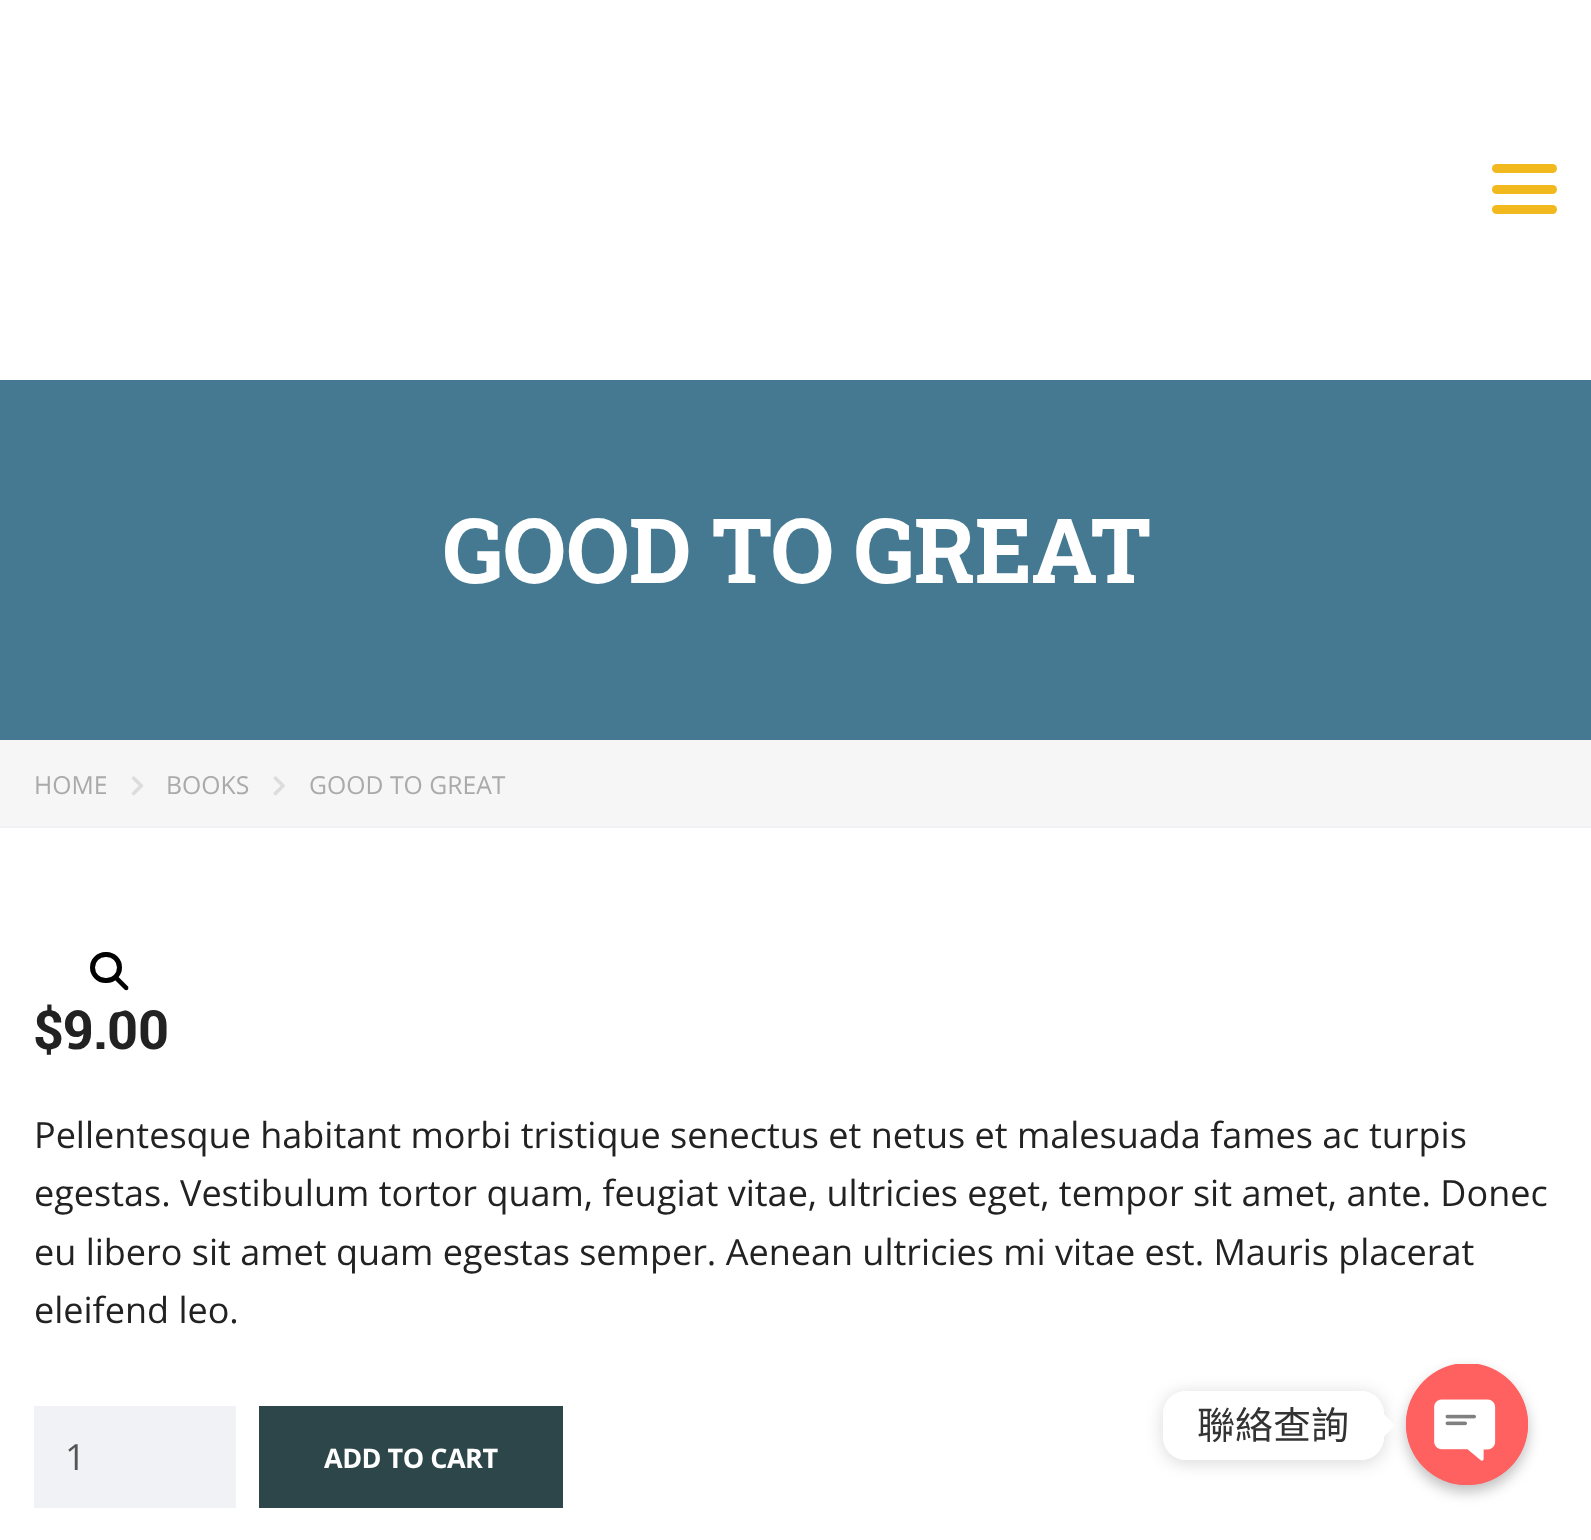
<?xml version="1.0" encoding="UTF-8"?>
<svg xmlns="http://www.w3.org/2000/svg" xmlns:xlink="http://www.w3.org/1999/xlink" width="1591" height="1540">
  <defs>
    <clipPath id="clip1"><path d="M 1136 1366 h 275 v 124 h -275 z m 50 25 h 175 c 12.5 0 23 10.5 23 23 v 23 c 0 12.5 -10.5 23 -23 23 h -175 c -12.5 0 -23 -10.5 -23 -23 v -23 c 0 -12.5 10.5 -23 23 -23 z" clip-rule="evenodd" /></clipPath>
  </defs>
  <rect width="100%" height="100%" fill="#ffffff" />
  <rect x="1492" y="164" width="65" height="9" rx="4.5" fill="#f2b91e" />
  <rect x="1492" y="185" width="65" height="9" rx="4.5" fill="#f2b91e" />
  <rect x="1492" y="205" width="65" height="9" rx="4.5" fill="#f2b91e" />
  <rect y="380" width="1591" height="360" fill="#457992" />
  <rect y="740" width="1591" height="86" fill="#f6f6f6" />
  <rect y="826" width="1591" height="2" fill="#f0f2f5" />
  <image x="131" y="776" width="13" height="20" xlink:href="image1.png" />
  <image x="273" y="776" width="12" height="20" xlink:href="image2.png" />
  <rect x="34" y="1406" width="202" height="102" fill="#f0f2f5" />
  <rect x="259" y="1406" width="304" height="102" fill="#2d4649" />
  <g clip-path="url(#clip1)">
    <rect x="1163" y="1393" width="221" height="70" rx="23" fill="#000000" fill-opacity="0.15" filter="blur(8.5px)" />
  </g>
  <rect x="1163" y="1391" width="221" height="69" rx="23" fill="#ffffff" />
  <path d="M 1384 1436.5 v -22.5 l 11 11.5 z" fill="#ffffff" />
  <rect x="1406" y="1370" width="122" height="122" rx="61" fill="#000000" fill-opacity="0.25" filter="blur(7px)" />
  <rect x="1406" y="1364" width="122" height="121" rx="60.5" fill="#ff6060" />
  <image x="1406" y="1364" width="122" height="121" xlink:href="image3.png" />
  <text x="443" y="583" style="font-family: Roboto Slab; font-size: 90px; font-weight: bold; letter-spacing: -0.9px; fill: #ffffff">GOOD TO GREAT</text>
  <text x="34" y="794" style="font-family: Open Sans; font-size: 24.75px; fill: #aaaaaa">HOME</text>
  <text x="166" y="794" style="font-family: Open Sans; font-size: 24.75px; fill: #aaaaaa">BOOKS</text>
  <text x="309" y="794" style="font-family: Open Sans; font-size: 24.75px; fill: #aaaaaa">GOOD TO GREAT</text>
  <text x="34" y="1049" style="font-family: Roboto Slab; font-size: 54px; font-weight: bold; fill: #222222">$9.00</text>
  <circle cx="110.5" cy="972.5" r="40.5" fill="#ffffff" />
  <rect x="92.5" y="954.5" width="27" height="26" rx="13" fill="none" stroke="#000000" stroke-width="5" />
  <path d="M 115 977 c 1 -1 2.5 -1 3.5 0 l 9.5 9.5 c 0.5 1 0.5 2 0 3 c -1 1 -2.5 1 -3.5 0 l -9.5 -9.5 c -0.5 -1 -0.5 -2 0 -3 z" fill="#000000" />
  <text x="34" y="1148" style="font-family: Open Sans; font-size: 36px; fill: #222222">Pellentesque habitant morbi tristique senectus et netus et malesuada fames ac turpis</text>
  <text x="34" y="1206" style="font-family: Open Sans; font-size: 36px; fill: #222222">egestas. Vestibulum tortor quam, feugiat vitae, ultricies eget, tempor sit amet, ante. Donec</text>
  <text x="34" y="1265" style="font-family: Open Sans; font-size: 36px; fill: #222222">eu libero sit amet quam egestas semper. Aenean ultricies mi vitae est. Mauris placerat</text>
  <text x="34" y="1323" style="font-family: Open Sans; font-size: 36px; fill: #222222">eleifend leo.</text>
  <text x="65" y="1470" style="font-family: Open Sans; font-size: 36px; fill: #555555">1</text>
  <text x="324" y="1468" style="font-family: Open Sans; font-size: 27px; font-weight: bold; letter-spacing: -0.5px; fill: #ffffff">ADD TO CART</text>
  <text x="1197" y="1439" style="font-family: Noto Sans CJK HK; font-size: 38px; fill: #333333">聯絡查詢</text>
</svg>
